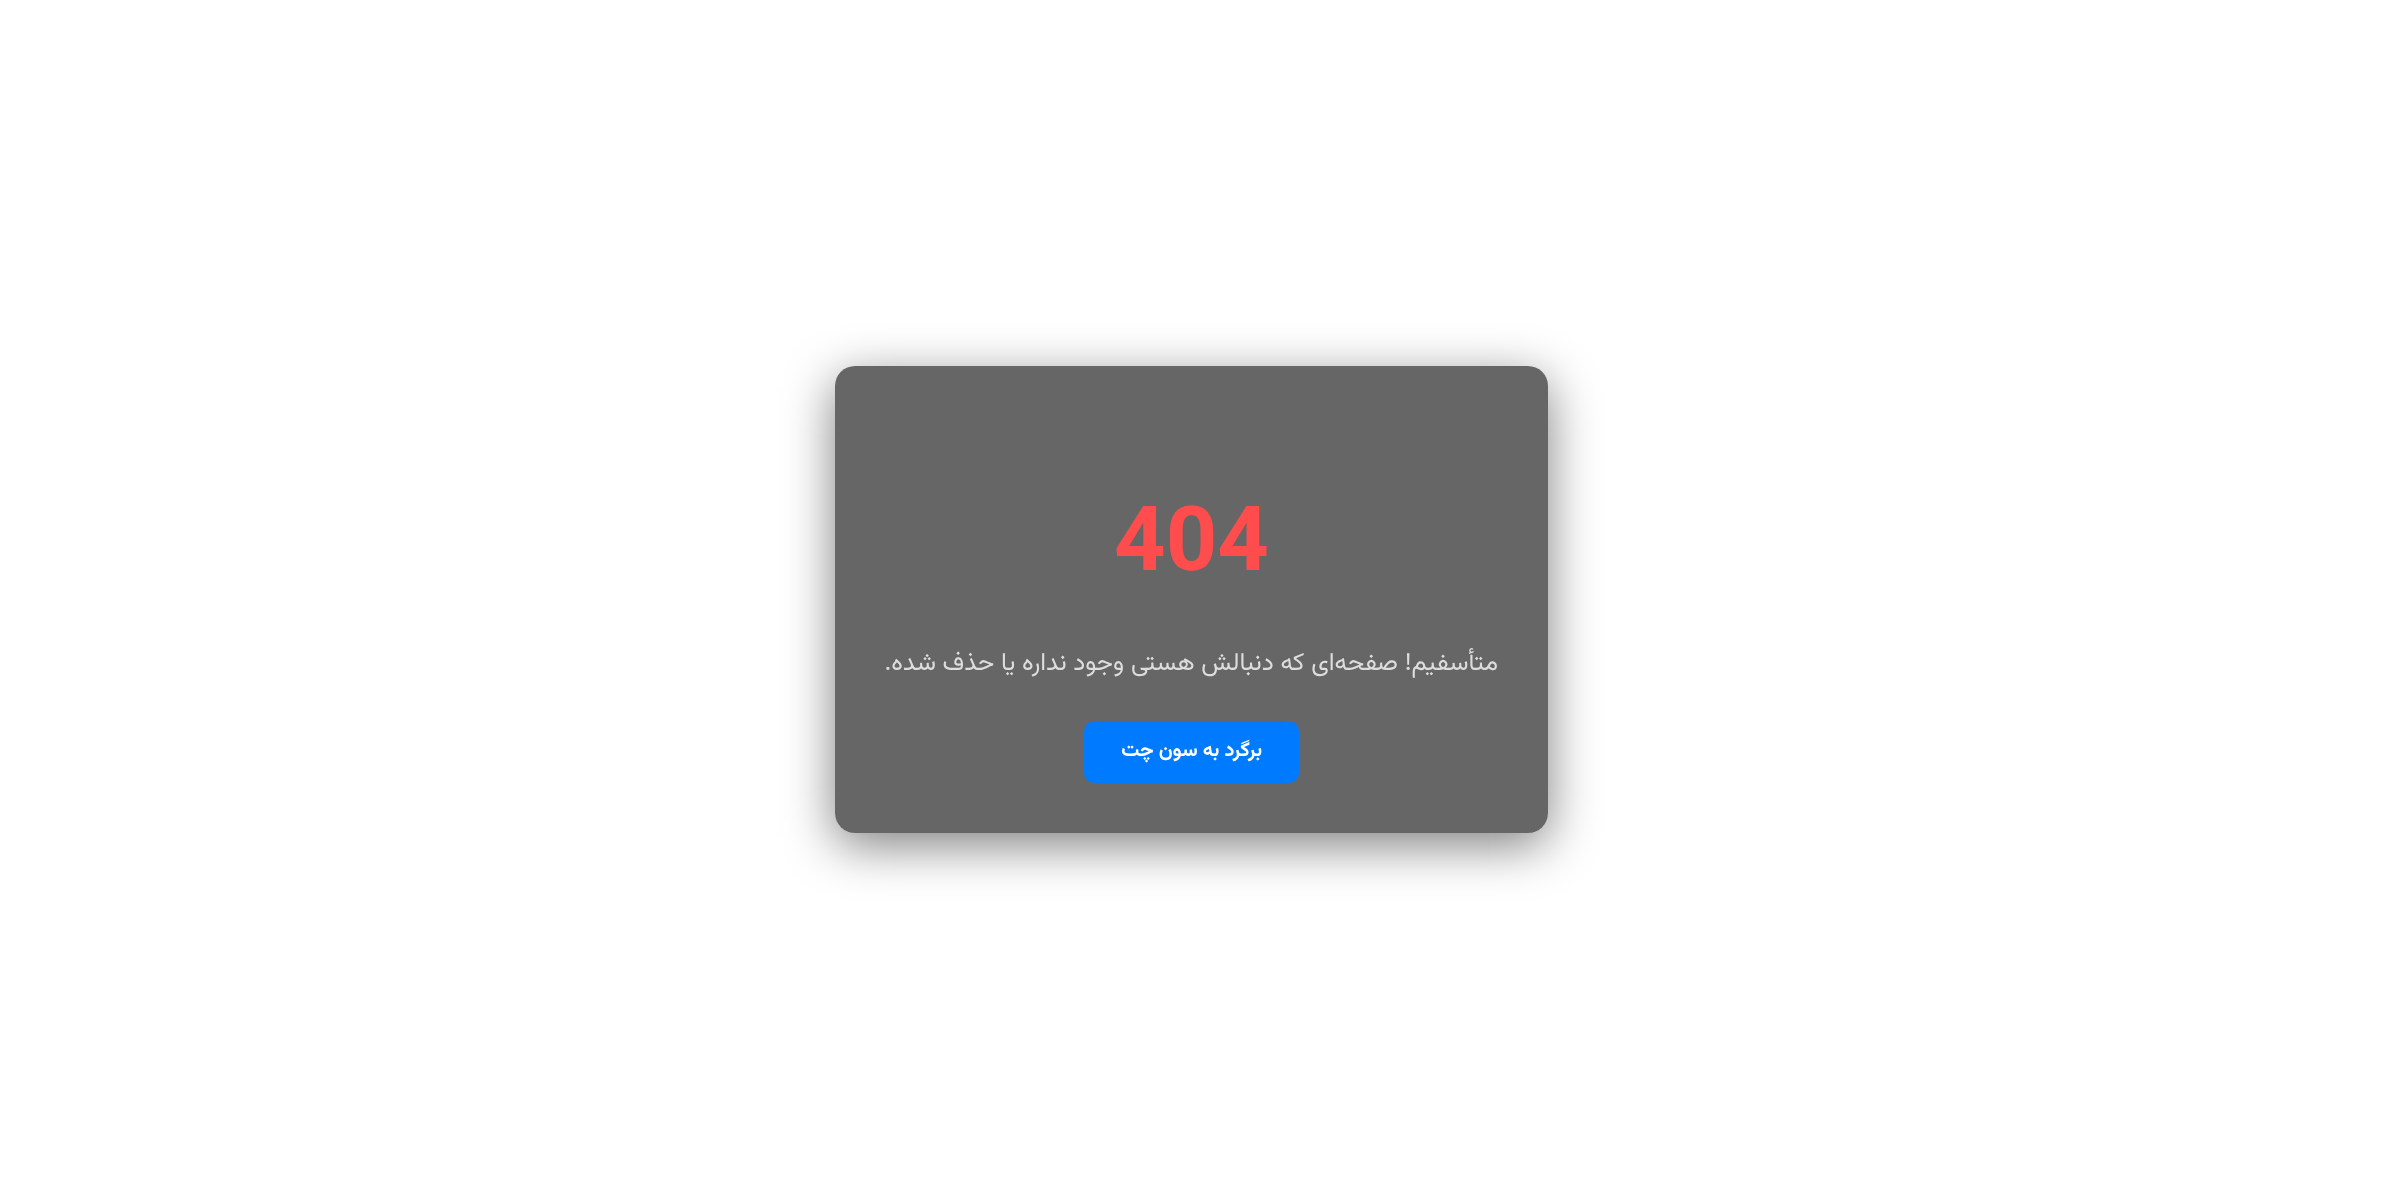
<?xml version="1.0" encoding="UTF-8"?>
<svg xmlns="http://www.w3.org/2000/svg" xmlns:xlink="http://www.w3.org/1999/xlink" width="2382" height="1198">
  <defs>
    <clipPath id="clip1"><path d="M 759 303 h 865 v 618 h -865 z m 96 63 h 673 c 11 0 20 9 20 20 v 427 c 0 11 -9 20 -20 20 h -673 c -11 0 -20 -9 -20 -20 v -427 c 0 -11 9 -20 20 -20 z" clip-rule="evenodd" /></clipPath>
  </defs>
  <rect width="100%" height="100%" fill="#ffffff" />
  <g clip-path="url(#clip1)">
    <rect x="835" y="379" width="713" height="466" rx="20" fill="#000000" fill-opacity="0.5" filter="blur(25px)" />
  </g>
  <rect x="835" y="366" width="713" height="467" rx="20" fill="#000000" fill-opacity="0.6" />
  <rect x="1084" y="721" width="215" height="62" rx="10" fill="#007bff" />
  <text x="1114" y="570" style="font-family: Vazirmatn; font-size: 90px; font-weight: bold; fill: #ff4c4c">404</text>
  <text x="1498" y="670" style="font-family: Vazirmatn; font-size: 25px; direction: rtl; fill: #dddddd">متأسفیم! صفحه‌ای که دنبالش هستی وجود نداره یا حذف شده.</text>
  <text x="1262" y="756" style="font-family: Vazirmatn; font-size: 20px; font-weight: bold; direction: rtl; fill: #ffffff">برگرد به سون چت</text>
</svg>
